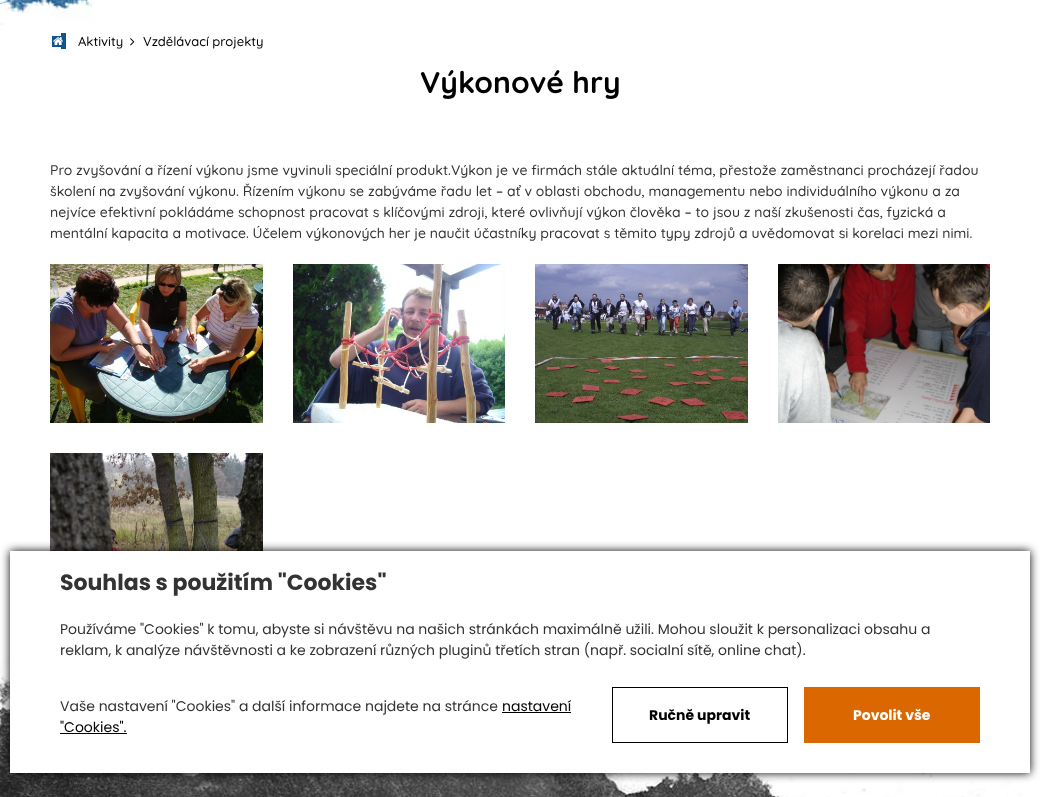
<?xml version="1.0" encoding="UTF-8"?>
<svg xmlns="http://www.w3.org/2000/svg" xmlns:xlink="http://www.w3.org/1999/xlink" width="1040" height="797">
  <rect width="100%" height="100%" fill="#ffffff" />
  <image x="0" y="0" width="94" height="25" xlink:href="image1.png" />
  <rect x="52" y="36" width="9" height="11" fill="#12558c" />
  <rect x="61" y="33" width="5" height="16" fill="#12558c" />
  <image x="53" y="37" width="10" height="8" xlink:href="image2.png" />
  <image x="130" y="38" width="5" height="8" xlink:href="image3.png" />
  <image x="50" y="264" width="213" height="159" xlink:href="image4.png" />
  <image x="293" y="264" width="212" height="159" xlink:href="image5.png" />
  <image x="535" y="264" width="213" height="159" xlink:href="image6.png" />
  <image x="778" y="264" width="212" height="159" xlink:href="image7.png" />
  <image x="50" y="453" width="213" height="98" xlink:href="image8.png" />
  <image x="0" y="659" width="1030" height="138" xlink:href="image9.png" />
  <rect x="10" y="551" width="1020" height="222" fill="#000000" filter="blur(5px)" />
  <rect x="10" y="551" width="1020" height="222" fill="#ffffff" />
  <rect x="502" y="712" width="69" height="1" fill="#000000" />
  <rect x="60" y="733" width="67" height="1" fill="#000000" />
  <rect x="612.5" y="687.5" width="175" height="55" fill="none" stroke="#000000" />
  <rect x="804" y="687" width="176" height="56" fill="#db6700" />
  <text x="78" y="46" style="font-family: Quicksand; font-size: 13px; font-weight: 500; fill: #000000">Aktivity</text>
  <text x="143" y="46" style="font-family: Quicksand; font-size: 13px; font-weight: 500; fill: #000000">Vzdělávací projekty</text>
  <text x="420" y="93" style="font-family: Quicksand; font-size: 30px; font-weight: bold; fill: #000000">Výkonové hry</text>
  <text x="50" y="175" style="font-family: Quicksand; font-size: 14px; font-weight: 500; fill: #333333">Pro zvyšování a řízení výkonu jsme vyvinuli speciální produkt.Výkon je ve firmách stále aktuální téma, přestože zaměstnanci procházejí řadou</text>
  <text x="50" y="196" style="font-family: Quicksand; font-size: 14px; font-weight: 500; fill: #333333">školení na zvyšování výkonu. Řízením výkonu se zabýváme řadu let – ať v oblasti obchodu, managementu nebo individuálního výkonu a za</text>
  <text x="50" y="217" style="font-family: Quicksand; font-size: 14px; font-weight: 500; fill: #333333">nejvíce efektivní pokládáme schopnost pracovat s klíčovými zdroji, které ovlivňují výkon člověka – to jsou z naší zkušenosti čas, fyzická a</text>
  <text x="50" y="238" style="font-family: Quicksand; font-size: 14px; font-weight: 500; fill: #333333">mentální kapacita a motivace. Účelem výkonových her je naučit účastníky pracovat s těmito typy zdrojů a uvědomovat si korelaci mezi nimi.</text>
  <text x="60" y="590" style="font-family: Poppins; font-size: 22px; font-weight: bold; fill: #333333">Souhlas s použitím "Cookies"</text>
  <text x="60" y="634" style="font-family: Poppins; font-size: 14px; fill: #333333">Používáme "Cookies" k tomu, abyste si návštěvu na našich stránkách maximálně užili. Mohou sloužit k personalizaci obsahu a</text>
  <text x="60" y="655" style="font-family: Poppins; font-size: 14px; fill: #333333">reklam, k analýze návštěvnosti a ke zobrazení různých pluginů třetích stran (např. socialní sítě, online chat).</text>
  <text x="60" y="711" style="font-family: Poppins; font-size: 14px; fill: #333333">Vaše nastavení "Cookies" a další informace najdete na stránce</text>
  <text x="502" y="711" style="font-family: Poppins; font-size: 14px; fill: #000000">nastavení</text>
  <text x="60" y="732" style="font-family: Poppins; font-size: 14px; fill: #000000">"Cookies".</text>
  <text x="649" y="720" style="font-family: Poppins; font-size: 14px; font-weight: bold; fill: #000000">Ručně upravit</text>
  <text x="853" y="720" style="font-family: Poppins; font-size: 14px; font-weight: bold; fill: #ffffff">Povolit vše</text>
</svg>
